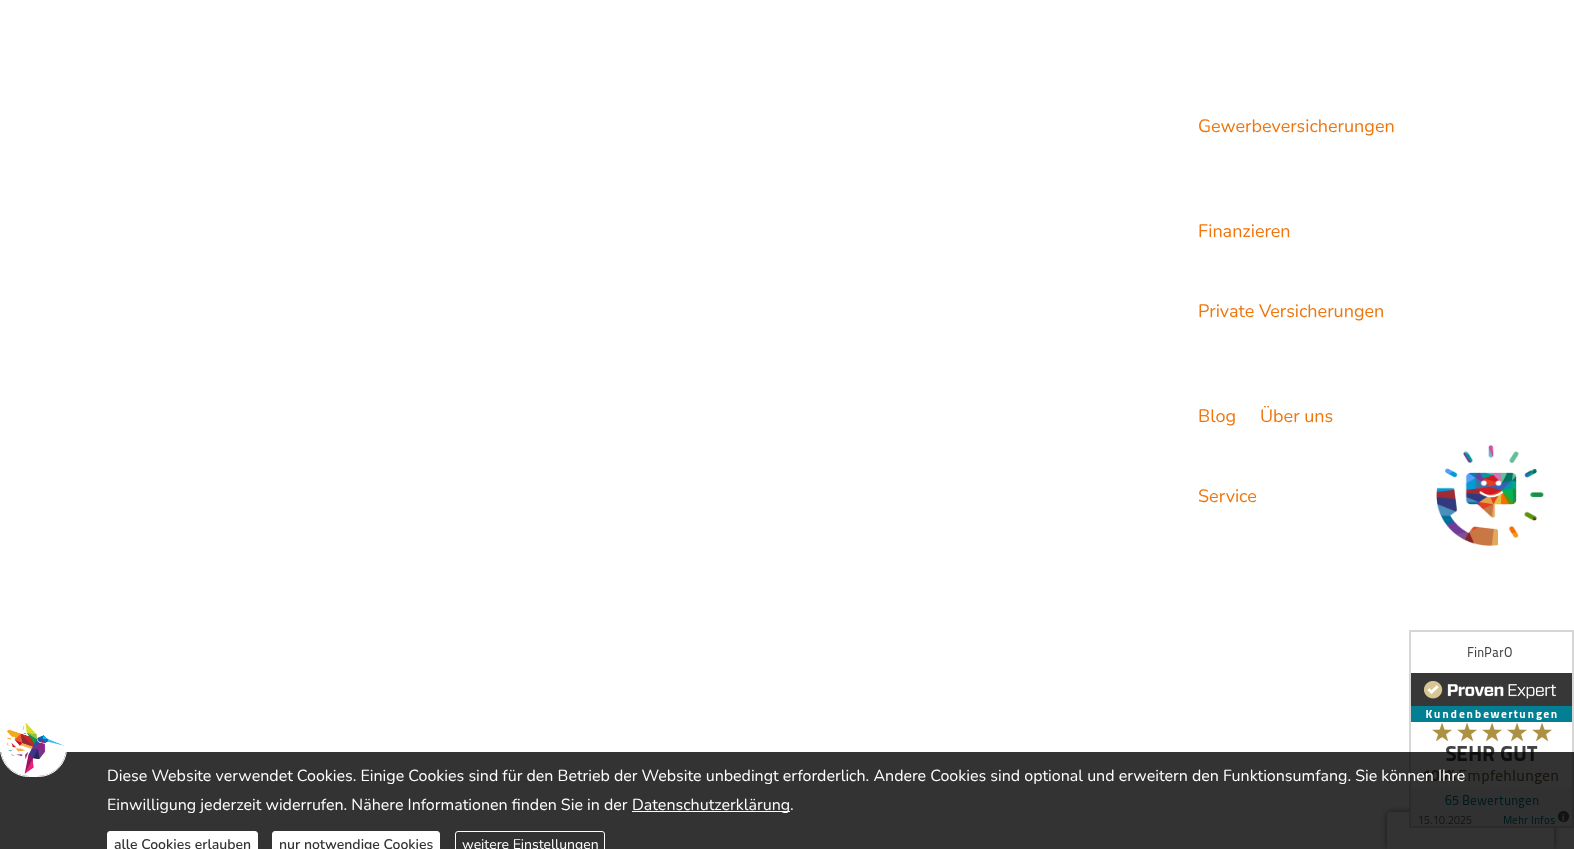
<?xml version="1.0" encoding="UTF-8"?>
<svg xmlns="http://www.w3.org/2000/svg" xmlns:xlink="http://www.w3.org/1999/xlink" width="1574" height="849">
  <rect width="100%" height="100%" fill="#ffffff" />
  <image x="1436" y="445" width="108" height="101" xlink:href="image1.png" />
  <rect x="1387" y="812" width="167" height="37" rx="3" fill="#777777" filter="blur(3px)" />
  <path d="M 1390 812 h 161 c 1.5 0 3 1.5 3 3 v 34 h -167 v -34 c 0 -1.5 1.5 -3 3 -3 z" fill="#ffffff" />
  <image x="1409" y="630" width="165" height="198" xlink:href="image3.png" />
  <rect y="752" width="1574" height="97" fill="#000000" fill-opacity="0.8" />
  <rect x="0.5" y="720.5" width="66" height="56" rx="28" fill="none" stroke="#ffffff" />
  <image x="1" y="722" width="65" height="54" xlink:href="image2.png" />
  <rect x="632" y="811" width="158" height="1" fill="#ffffff" />
  <rect x="107.5" y="831.5" width="150" height="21" rx="2.5" fill="#ffffff" stroke="#ffffff" />
  <rect x="272.5" y="831.5" width="167" height="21" rx="2.5" fill="#ffffff" stroke="#ffffff" />
  <rect x="455.5" y="831.5" width="149" height="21" rx="2.5" fill="none" stroke="#ffffff" />
  <text x="1198" y="132" style="font-family: Nunito; font-size: 18px; fill: #ee760d">Gewerbeversicherungen</text>
  <text x="1198" y="237" style="font-family: Nunito; font-size: 18px; fill: #ee760d">Finanzieren</text>
  <text x="1198" y="317" style="font-family: Nunito; font-size: 18px; fill: #ee760d">Private Versicherungen</text>
  <text x="1198" y="422" style="font-family: Nunito; font-size: 18px; fill: #ee760d">Blog</text>
  <text x="1260" y="422" style="font-family: Nunito; font-size: 18px; fill: #ee760d">Über uns</text>
  <text x="1198" y="502" style="font-family: Nunito; font-size: 18px; fill: #ee760d">Service</text>
  <text x="107" y="781" style="font-family: Nunito; font-size: 16px; fill: #ffffff">Diese Website verwendet Cookies. Einige Cookies sind für den Betrieb der Website unbedingt erforderlich. Andere Cookies sind optional und erweitern den Funktionsumfang. Sie können Ihre</text>
  <text x="107" y="810" style="font-family: Nunito; font-size: 16px; fill: #ffffff">Einwilligung jederzeit widerrufen. Nähere Informationen finden Sie in der</text>
  <text x="632" y="810" style="font-family: Nunito; font-size: 16px; fill: #ffffff">Datenschutzerklärung.</text>
  <text x="114" y="849" style="font-family: Nunito; font-size: 14px; font-weight: 600; fill: #333333">alle Cookies erlauben</text>
  <text x="279" y="849" style="font-family: Nunito; font-size: 14px; font-weight: 600; fill: #333333">nur notwendige Cookies</text>
  <text x="462" y="849" style="font-family: Nunito; font-size: 14px; fill: #ffffff">weitere Einstellungen</text>
</svg>
